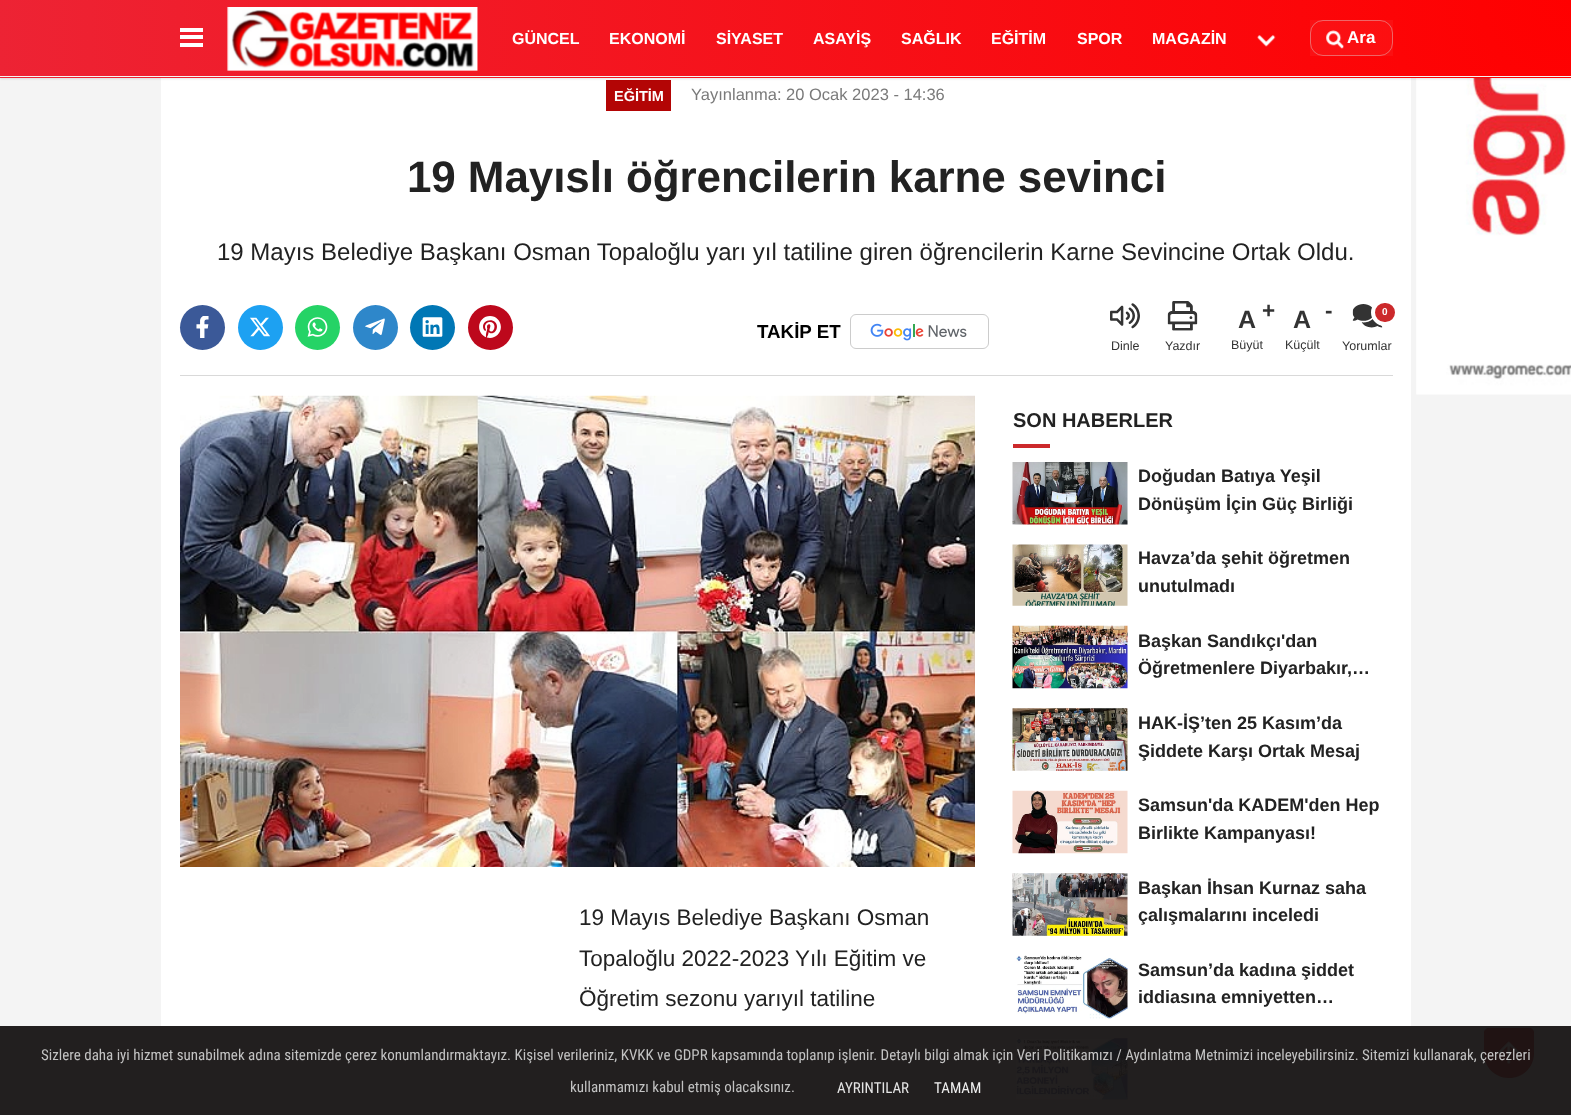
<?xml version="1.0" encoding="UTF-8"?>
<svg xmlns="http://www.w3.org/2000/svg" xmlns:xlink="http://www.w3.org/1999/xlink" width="1571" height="1115">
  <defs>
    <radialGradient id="g1" gradientUnits="userSpaceOnUse" cx="1571" cy="0" r="1573"><stop offset="0" stop-color="#ff0000" /><stop offset="1" stop-color="#ed2334" /></radialGradient>
    <radialGradient id="g2" gradientUnits="userSpaceOnUse" cx="1571" cy="76" r="1573"><stop offset="0" stop-color="#ff0000" /><stop offset="1" stop-color="#ed2334" /></radialGradient>
  </defs>
  <rect width="100%" height="100%" fill="#f4f4f4" />
  <rect y="1026" width="1571" height="89" fill="#221f1f" />
  <rect x="161" y="78" width="1250" height="948" fill="#ffffff" />
  <rect x="606" y="80" width="65" height="31" fill="#b30505" />
  <image x="1416" y="78" width="155" height="317" xlink:href="image23.png" />
  <rect y="1" width="1571" height="78" fill="#000000" fill-opacity="0.1" filter="blur(1px)" />
  <rect width="1571" height="76" fill="url(#g1)" />
  <rect y="77" width="1571" height="1" fill="url(#g2)" />
  <rect y="76" width="1571" height="1" fill="#f5f5f5" />
  <rect x="180" y="28" width="23" height="4" fill="#ffffff" />
  <rect x="180" y="35" width="23" height="4" fill="#ffffff" />
  <rect x="180" y="43" width="23" height="4" fill="#ffffff" />
  <image x="227" y="7" width="251" height="64" xlink:href="image1.png" />
  <image x="1257" y="35" width="19" height="12" xlink:href="image2.png" />
  <rect x="1310" y="20" width="83" height="36" fill="#e9e9e9" fill-opacity="0.05" />
  <rect x="1310.5" y="20.5" width="82" height="35" rx="12.5" fill="none" stroke="#dddddd" stroke-opacity="0.42" />
  <image x="1326" y="30" width="18" height="19" xlink:href="image3.png" />
  <circle cx="202.5" cy="327.5" r="22.5" fill="#3b5998" />
  <image x="196" y="316" width="13" height="22" xlink:href="image4.png" />
  <circle cx="260.5" cy="327.5" r="22.5" fill="#1da1f2" />
  <image x="250" y="317" width="20" height="20" xlink:href="image5.png" />
  <circle cx="317.5" cy="327.5" r="22.5" fill="#25d366" />
  <image x="307" y="317" width="21" height="20" xlink:href="image6.png" />
  <circle cx="375.5" cy="327.5" r="22.5" fill="#2e87ca" />
  <image x="365" y="318" width="20" height="17" xlink:href="image7.png" />
  <circle cx="432.5" cy="327.5" r="22.5" fill="#0077b5" />
  <image x="422" y="317" width="21" height="20" xlink:href="image8.png" />
  <circle cx="490.5" cy="327.5" r="22.5" fill="#bd081c" />
  <image x="479" y="316" width="22" height="22" xlink:href="image9.png" />
  <rect x="850.5" y="314.5" width="138" height="34" rx="5.5" fill="none" stroke="#cccccc" />
  <image x="870" y="323" width="97" height="18" xlink:href="image10.png" />
  <image x="1110" y="303" width="30" height="26" xlink:href="image11.png" />
  <image x="1167" y="301" width="31" height="30" xlink:href="image12.png" />
  <image x="1352" y="304" width="31" height="24" xlink:href="image13.png" />
  <rect x="1373" y="301" width="24" height="23" rx="11.5" fill="#cc292b" stroke="#ffffff" stroke-width="4" />
  <rect x="180" y="375" width="1213" height="1" fill="#d9d9d9" />
  <image x="180" y="395" width="795" height="472" xlink:href="image14.png" />
  <rect x="1013" y="444" width="37" height="4" fill="#cc292b" />
  <image x="1012" y="462" width="116" height="63" xlink:href="image15.png" />
  <image x="1012" y="544" width="116" height="62" xlink:href="image16.png" />
  <image x="1012" y="625" width="116" height="64" xlink:href="image17.png" />
  <image x="1012" y="708" width="116" height="63" xlink:href="image18.png" />
  <image x="1012" y="790" width="116" height="64" xlink:href="image19.png" />
  <image x="1012" y="873" width="116" height="63" xlink:href="image20.png" />
  <image x="1016" y="955" width="112" height="64" xlink:href="image21.png" />
  <image x="1016" y="1038" width="112" height="62" xlink:href="image22.png" />
  <path d="M 1489 1028 h 40 c 3 0 5 2 5 5 v 20 c 0 14 -11 25 -25 25 c -14 0 -25 -11 -25 -25 v -20 c 0 -3 2 -5 5 -5 z" fill="#201313" />
  <image x="1497" y="1041" width="24" height="23" xlink:href="image24.png" />
  <text x="512" y="44" style="font-family: Liberation Sans; font-size: 16px; font-weight: bold; fill: #ffffff">GÜNCEL</text>
  <text x="609" y="44" style="font-family: Liberation Sans; font-size: 16px; font-weight: bold; fill: #ffffff">EKONOMİ</text>
  <text x="716" y="44" style="font-family: Liberation Sans; font-size: 16px; font-weight: bold; fill: #ffffff">SİYASET</text>
  <text x="813" y="44" style="font-family: Liberation Sans; font-size: 16px; font-weight: bold; fill: #ffffff">ASAYİŞ</text>
  <text x="901" y="44" style="font-family: Liberation Sans; font-size: 16px; font-weight: bold; fill: #ffffff">SAĞLIK</text>
  <text x="991" y="44" style="font-family: Liberation Sans; font-size: 16px; font-weight: bold; fill: #ffffff">EĞİTİM</text>
  <text x="1077" y="44" style="font-family: Liberation Sans; font-size: 16px; font-weight: bold; fill: #ffffff">SPOR</text>
  <text x="1152" y="44" style="font-family: Liberation Sans; font-size: 16px; font-weight: bold; fill: #ffffff">MAGAZİN</text>
  <text x="1347" y="43" style="font-family: Liberation Sans; font-size: 17px; font-weight: bold; fill: #ffffff">Ara</text>
  <text x="614" y="101" style="font-family: Liberation Sans; font-size: 14.5px; font-weight: bold; fill: #ffffff">EĞİTİM</text>
  <text x="691" y="100" style="font-family: Liberation Sans; font-size: 16.5px; fill: #7a7a7a">Yayınlanma: 20 Ocak 2023 - 14:36</text>
  <text x="407" y="192" style="font-family: Liberation Sans; font-size: 44px; font-weight: bold; letter-spacing: -0.1px; fill: #222222">19 Mayıslı öğrencilerin karne sevinci</text>
  <text x="217" y="260" style="font-family: Liberation Sans; font-size: 24px; fill: #222222">19 Mayıs Belediye Başkanı Osman Topaloğlu yarı yıl tatiline giren öğrencilerin Karne Sevincine Ortak Oldu.</text>
  <text x="757" y="338" style="font-family: Liberation Sans; font-size: 18.75px; font-weight: bold; fill: #000000">TAKİP ET</text>
  <text x="1111" y="350" style="font-family: Liberation Sans; font-size: 12.5px; fill: #333333">Dinle</text>
  <text x="1165" y="350" style="font-family: Liberation Sans; font-size: 12.5px; fill: #333333">Yazdır</text>
  <text x="1238" y="328" style="font-family: Liberation Sans; font-size: 25px; font-weight: bold; fill: #333333">A</text>
  <text x="1262" y="318" style="font-family: Liberation Sans; font-size: 22.5px; font-weight: bold; fill: #333333">+</text>
  <text x="1231" y="349" style="font-family: Liberation Sans; font-size: 12.5px; fill: #333333">Büyüt</text>
  <text x="1293" y="328" style="font-family: Liberation Sans; font-size: 25px; font-weight: bold; fill: #333333">A</text>
  <text x="1325" y="318" style="font-family: Liberation Sans; font-size: 22.5px; font-weight: bold; fill: #333333">-</text>
  <text x="1285" y="349" style="font-family: Liberation Sans; font-size: 12.5px; fill: #333333">Küçült</text>
  <text x="1382" y="315" style="font-family: Liberation Sans; font-size: 10px; font-weight: bold; fill: #ffffff">0</text>
  <text x="1342" y="350" style="font-family: Liberation Sans; font-size: 12.5px; fill: #333333">Yorumlar</text>
  <text x="579" y="925" style="font-family: Liberation Sans; font-size: 22.5px; fill: #222222">19 Mayıs Belediye Başkanı Osman</text>
  <text x="579" y="966" style="font-family: Liberation Sans; font-size: 22.5px; fill: #222222">Topaloğlu 2022-2023 Yılı Eğitim ve</text>
  <text x="579" y="1006" style="font-family: Liberation Sans; font-size: 22.5px; fill: #222222">Öğretim sezonu yarıyıl tatiline</text>
  <text x="1013" y="427" style="font-family: Liberation Sans; font-size: 20px; font-weight: bold; fill: #222222">SON HABERLER</text>
  <text x="1138" y="482" style="font-family: Liberation Sans; font-size: 18px; font-weight: bold; fill: #222222">Doğudan Batıya Yeşil</text>
  <text x="1138" y="510" style="font-family: Liberation Sans; font-size: 18px; font-weight: bold; fill: #222222">Dönüşüm İçin Güç Birliği</text>
  <text x="1138" y="564" style="font-family: Liberation Sans; font-size: 18px; font-weight: bold; fill: #222222">Havza’da şehit öğretmen</text>
  <text x="1138" y="592" style="font-family: Liberation Sans; font-size: 18px; font-weight: bold; fill: #222222">unutulmadı</text>
  <text x="1138" y="647" style="font-family: Liberation Sans; font-size: 18px; font-weight: bold; fill: #222222">Başkan Sandıkçı'dan</text>
  <text x="1138" y="674" style="font-family: Liberation Sans; font-size: 18px; font-weight: bold; fill: #222222">Öğretmenlere Diyarbakır,…</text>
  <text x="1138" y="729" style="font-family: Liberation Sans; font-size: 18px; font-weight: bold; fill: #222222">HAK-İŞ’ten 25 Kasım’da</text>
  <text x="1138" y="757" style="font-family: Liberation Sans; font-size: 18px; font-weight: bold; fill: #222222">Şiddete Karşı Ortak Mesaj</text>
  <text x="1138" y="811" style="font-family: Liberation Sans; font-size: 18px; font-weight: bold; fill: #222222">Samsun'da KADEM'den Hep</text>
  <text x="1138" y="839" style="font-family: Liberation Sans; font-size: 18px; font-weight: bold; fill: #222222">Birlikte Kampanyası!</text>
  <text x="1138" y="894" style="font-family: Liberation Sans; font-size: 18px; font-weight: bold; fill: #222222">Başkan İhsan Kurnaz saha</text>
  <text x="1138" y="921" style="font-family: Liberation Sans; font-size: 18px; font-weight: bold; fill: #222222">çalışmalarını inceledi</text>
  <text x="1138" y="976" style="font-family: Liberation Sans; font-size: 18px; font-weight: bold; fill: #222222">Samsun’da kadına şiddet</text>
  <text x="1138" y="1003" style="font-family: Liberation Sans; font-size: 18px; font-weight: bold; fill: #222222">iddiasına emniyetten…</text>
  <text x="41" y="1060" style="font-family: Roboto Condensed; font-size: 15px; fill: #c3c3c3">Sizlere daha iyi hizmet sunabilmek adına sitemizde çerez konumlandırmaktayız. Kişisel verileriniz, KVKK ve GDPR kapsamında toplanıp işlenir. Detaylı bilgi almak için Veri Politikamızı / Aydınlatma Metnimizi inceleyebilirsiniz. Sitemizi kullanarak, çerezleri</text>
  <text x="570" y="1092" style="font-family: Roboto Condensed; font-size: 15px; fill: #c3c3c3">kullanmamızı kabul etmiş olacaksınız.</text>
  <text x="837" y="1093" style="font-family: Roboto Condensed; font-size: 15px; fill: #e4e4e4">AYRINTILAR</text>
  <text x="934" y="1093" style="font-family: Roboto Condensed; font-size: 15px; fill: #efefef">TAMAM</text>
</svg>
